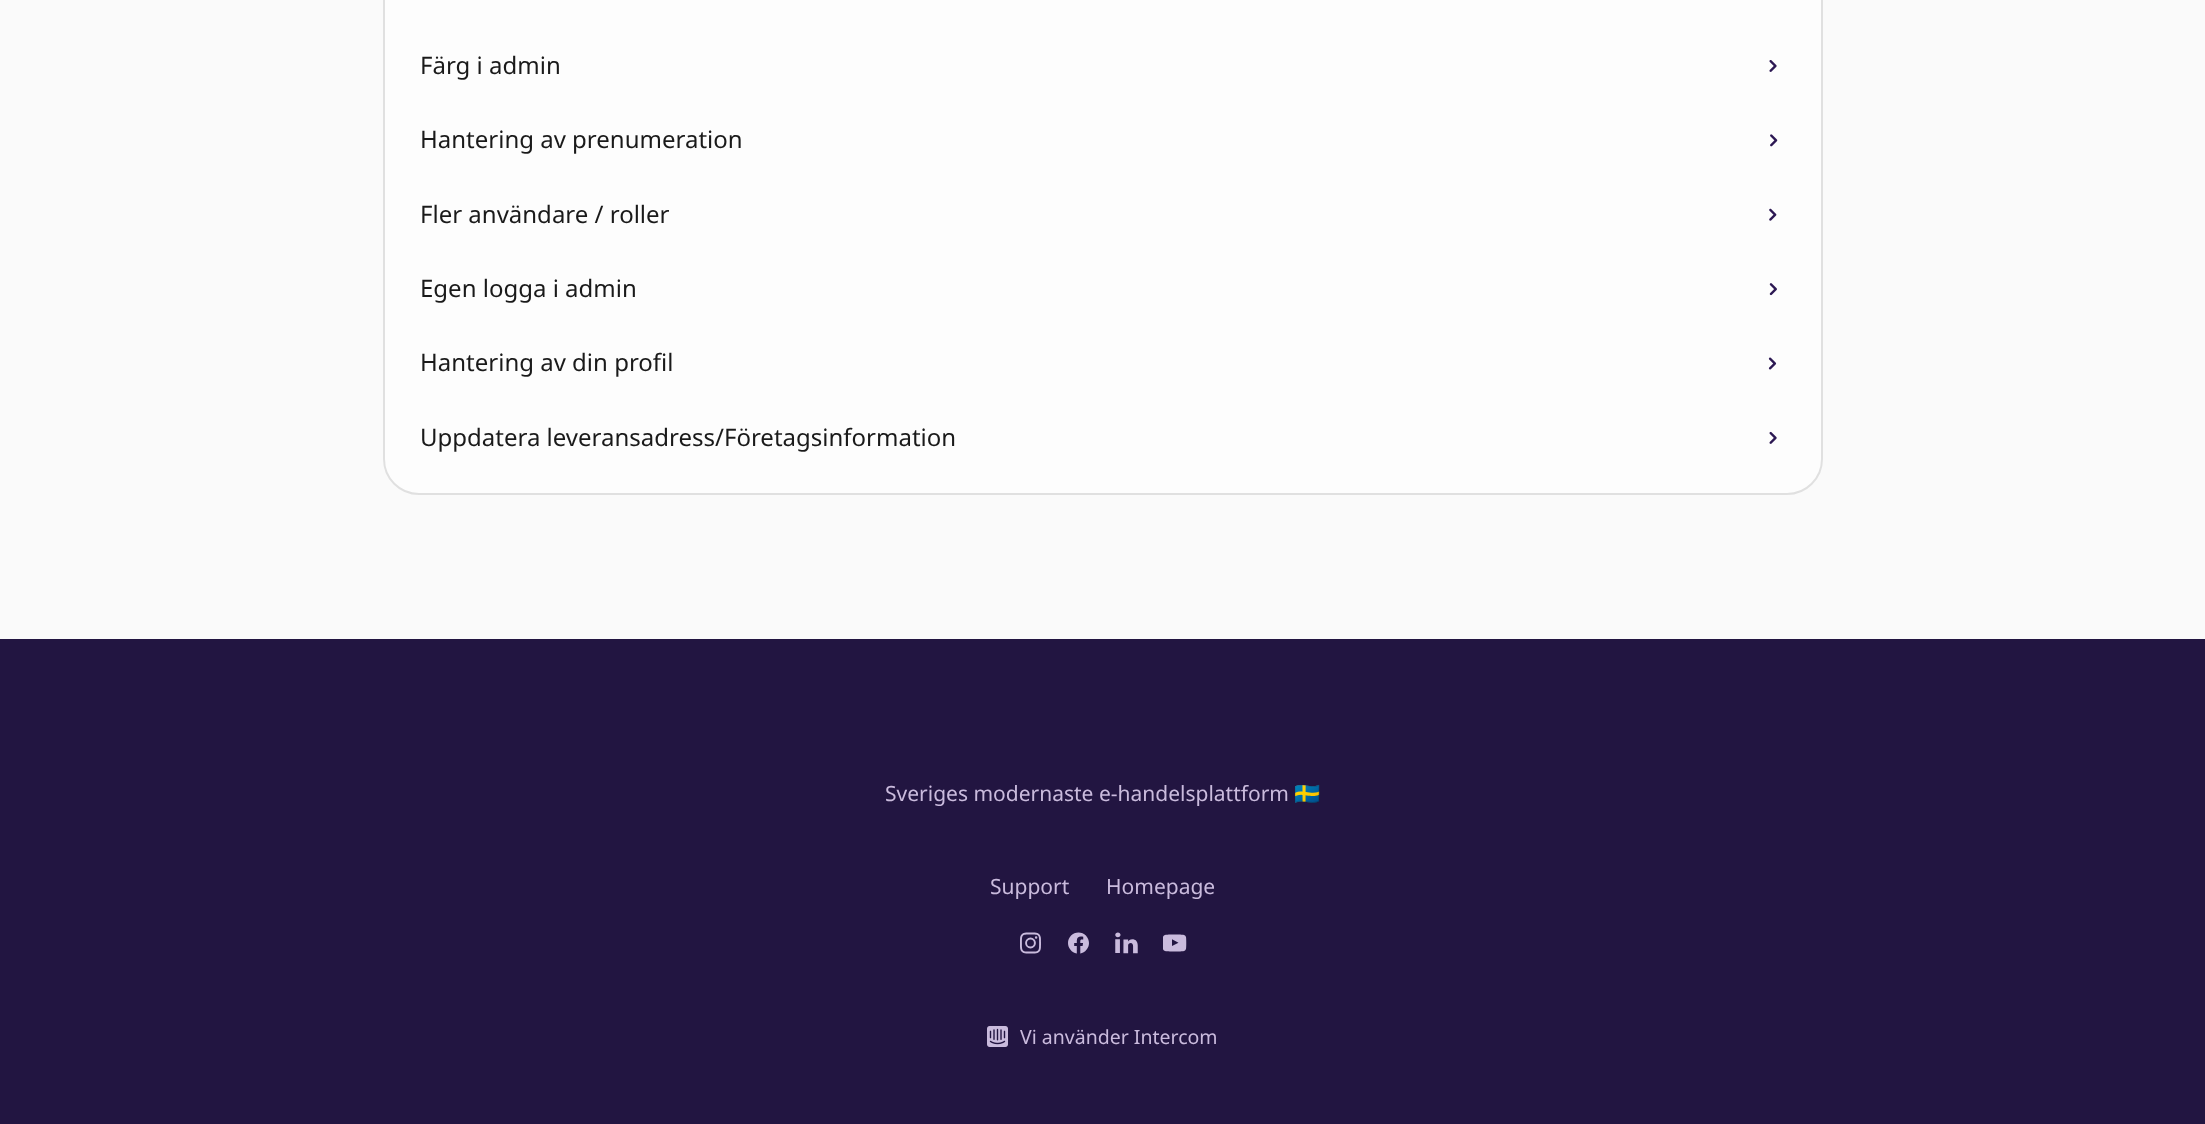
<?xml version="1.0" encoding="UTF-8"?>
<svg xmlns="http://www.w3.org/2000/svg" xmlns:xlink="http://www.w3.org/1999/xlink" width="2205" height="1124">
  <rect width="100%" height="100%" fill="#fafafa" />
  <rect x="384" y="-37" width="1438" height="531" rx="35" fill="#fdfdfd" stroke="#e0e0e0" stroke-width="2" />
  <image x="1769" y="60" width="8" height="12" xlink:href="image1.png" />
  <image x="1770" y="134" width="8" height="13" xlink:href="image2.png" />
  <image x="1769" y="208" width="8" height="13" xlink:href="image3.png" />
  <image x="1769" y="283" width="8" height="13" xlink:href="image4.png" />
  <image x="1768" y="357" width="9" height="13" xlink:href="image5.png" />
  <image x="1769" y="431" width="8" height="13" xlink:href="image6.png" />
  <rect y="639" width="2205" height="485" fill="#221541" />
  <image x="1020" y="932" width="21" height="22" xlink:href="image7.png" />
  <image x="1068" y="932" width="21" height="22" xlink:href="image8.png" />
  <image x="1115" y="932" width="23" height="22" xlink:href="image9.png" />
  <image x="1163" y="934" width="24" height="18" xlink:href="image10.png" />
  <image x="987" y="1026" width="21" height="21" xlink:href="image11.png" />
  <text x="420" y="74" style="font-family: Noto Sans; font-size: 24px; fill: #1a1a1a">Färg i admin</text>
  <text x="420" y="148" style="font-family: Noto Sans; font-size: 24px; fill: #1a1a1a">Hantering av prenumeration</text>
  <text x="420" y="223" style="font-family: Noto Sans; font-size: 24px; fill: #1a1a1a">Fler användare / roller</text>
  <text x="420" y="297" style="font-family: Noto Sans; font-size: 24px; fill: #1a1a1a">Egen logga i admin</text>
  <text x="420" y="371" style="font-family: Noto Sans; font-size: 24px; fill: #1a1a1a">Hantering av din profil</text>
  <text x="420" y="446" style="font-family: Noto Sans; font-size: 24px; fill: #1a1a1a">Uppdatera leveransadress/Företagsinformation</text>
  <text x="885" y="801" style="font-family: Noto Sans; font-size: 21px; fill: #cabbdd">Sveriges modernaste e-handelsplattform</text>
  <text x="1294" y="801" style="font-family: Noto Color Emoji; font-size: 21px; fill: #cabbdd">🇸🇪</text>
  <text x="990" y="894" style="font-family: Noto Sans; font-size: 21px; fill: #cabbdd">Support</text>
  <text x="1106" y="894" style="font-family: Noto Sans; font-size: 21px; fill: #cabbdd">Homepage</text>
  <text x="1020" y="1044" style="font-family: Noto Sans; font-size: 19.5px; fill: #cabbdd">Vi använder Intercom</text>
</svg>
